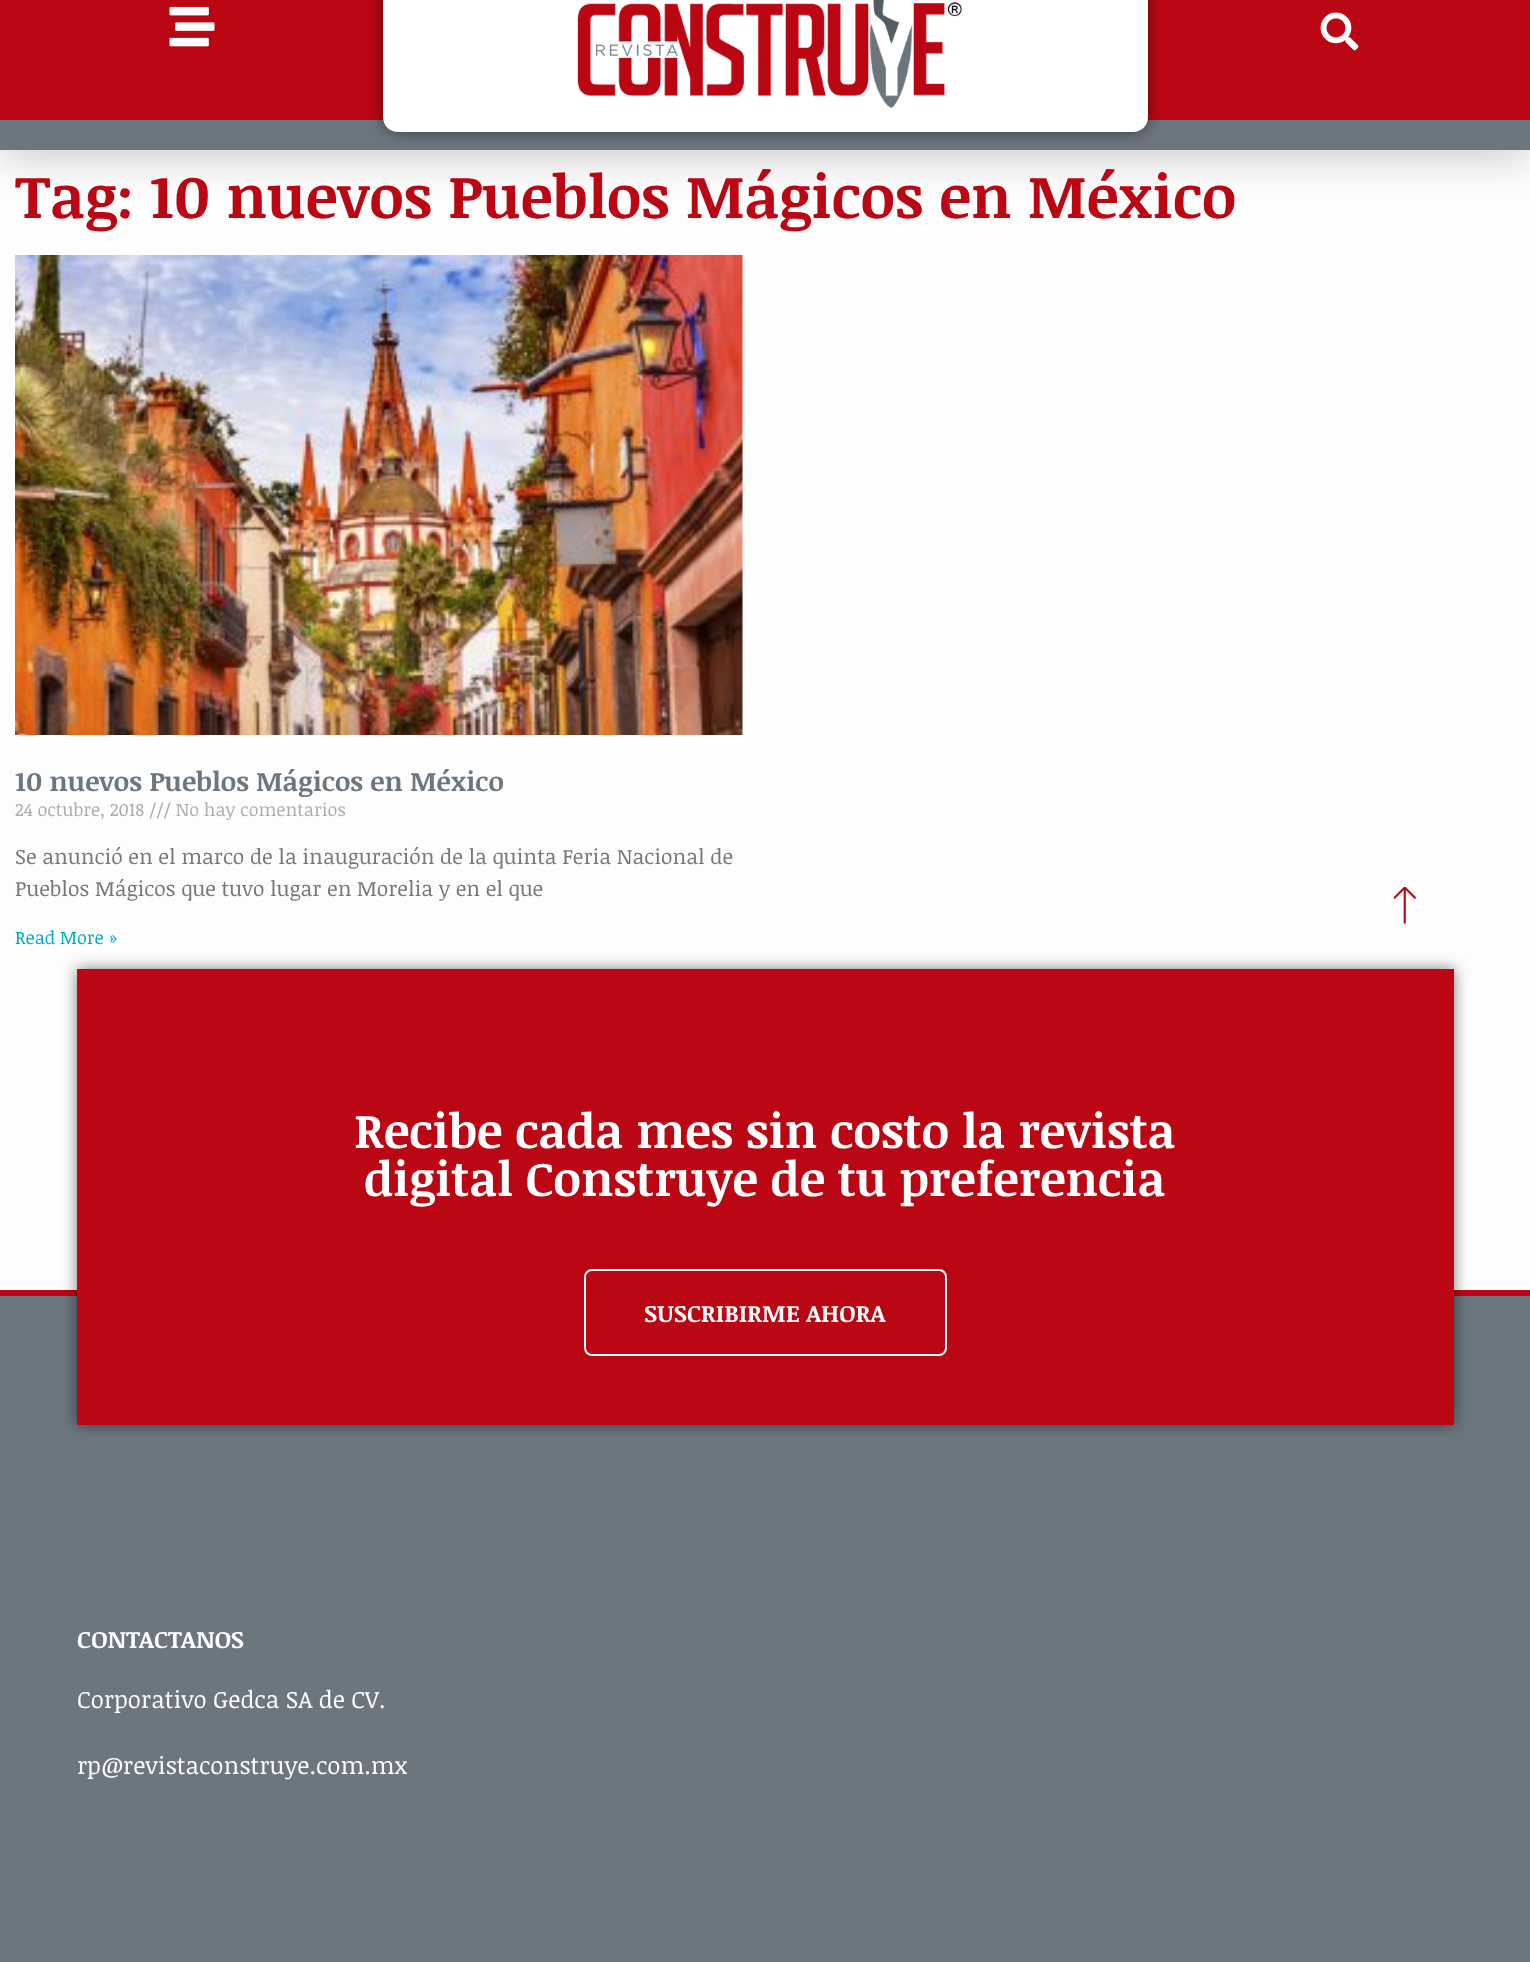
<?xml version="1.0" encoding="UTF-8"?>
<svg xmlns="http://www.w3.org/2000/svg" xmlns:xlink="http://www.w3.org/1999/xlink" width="1530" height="1962">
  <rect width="100%" height="100%" fill="#fdfdfd" />
  <rect y="120" width="1530" height="30" fill="#000000" fill-opacity="0.3" filter="blur(22.5px)" />
  <rect width="1530" height="120" fill="#bb0713" />
  <image x="169" y="6" width="46" height="41" xlink:href="image1.png" />
  <rect y="120" width="1530" height="30" fill="#6c767f" />
  <rect x="383" y="-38" width="765" height="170" rx="15" fill="#000000" fill-opacity="0.5" filter="blur(7.5px)" />
  <path d="M 383 -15 h 765 v 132 c 0 8.5 -6.5 15 -15 15 h -735 c -8.5 0 -15 -6.5 -15 -15 z" fill="#ffffff" />
  <image x="577" y="0" width="386" height="108" xlink:href="image2.png" />
  <image x="1320" y="12" width="39" height="39" xlink:href="image3.png" />
  <image x="15" y="255" width="728" height="480" xlink:href="image4.png" />
  <image x="1394" y="887" width="22" height="37" xlink:href="image5.png" />
  <rect y="1296" width="1530" height="666" fill="#6c767f" />
  <rect y="1290" width="1530" height="6" fill="#bb0713" />
  <rect x="77" y="969" width="1377" height="456" fill="#000000" fill-opacity="0.5" filter="blur(7.5px)" />
  <rect x="77" y="969" width="1377" height="456" fill="#bb0713" />
  <rect x="585" y="1270" width="361" height="85" rx="7" fill="none" stroke="#ffffff" stroke-width="2" />
  <text x="15" y="218" style="font-family: Noticia Text; font-size: 60px; font-weight: bold; fill: #bb0713">Tag: 10 nuevos Pueblos Mágicos en México</text>
  <text x="15" y="791" style="font-family: Noticia Text; font-size: 27px; font-weight: bold; fill: #6c767f">10 nuevos Pueblos Mágicos en México</text>
  <text x="15" y="816" style="font-family: Noticia Text; font-size: 18px; fill: #adadad">24 octubre, 2018 /// No hay comentarios</text>
  <text x="15" y="864" style="font-family: Noticia Text; font-size: 21px; fill: #777777">Se anunció en el marco de la inauguración de la quinta Feria Nacional de</text>
  <text x="15" y="896" style="font-family: Noticia Text; font-size: 21px; fill: #777777">Pueblos Mágicos que tuvo lugar en Morelia y en el que</text>
  <text x="15" y="944" style="font-family: Noticia Text; font-size: 18px; fill: #00adc4">Read More »</text>
  <text x="354" y="1148" style="font-family: Noticia Text; font-size: 48px; font-weight: bold; fill: #ffffff">Recibe cada mes sin costo la revista</text>
  <text x="364" y="1196" style="font-family: Noticia Text; font-size: 48px; font-weight: bold; fill: #ffffff">digital Construye de tu preferencia</text>
  <text x="644" y="1322" style="font-family: Noticia Text; font-size: 24px; font-weight: bold; fill: #ffffff">SUSCRIBIRME AHORA</text>
  <text x="77" y="1648" style="font-family: Noticia Text; font-size: 24px; font-weight: bold; fill: #ffffff">CONTACTANOS</text>
  <text x="77" y="1708" style="font-family: Noticia Text; font-size: 24px; fill: #ffffff">Corporativo Gedca SA de CV.</text>
  <text x="77" y="1774" style="font-family: Noticia Text; font-size: 24px; fill: #ffffff">rp@revistaconstruye.com.mx</text>
</svg>
